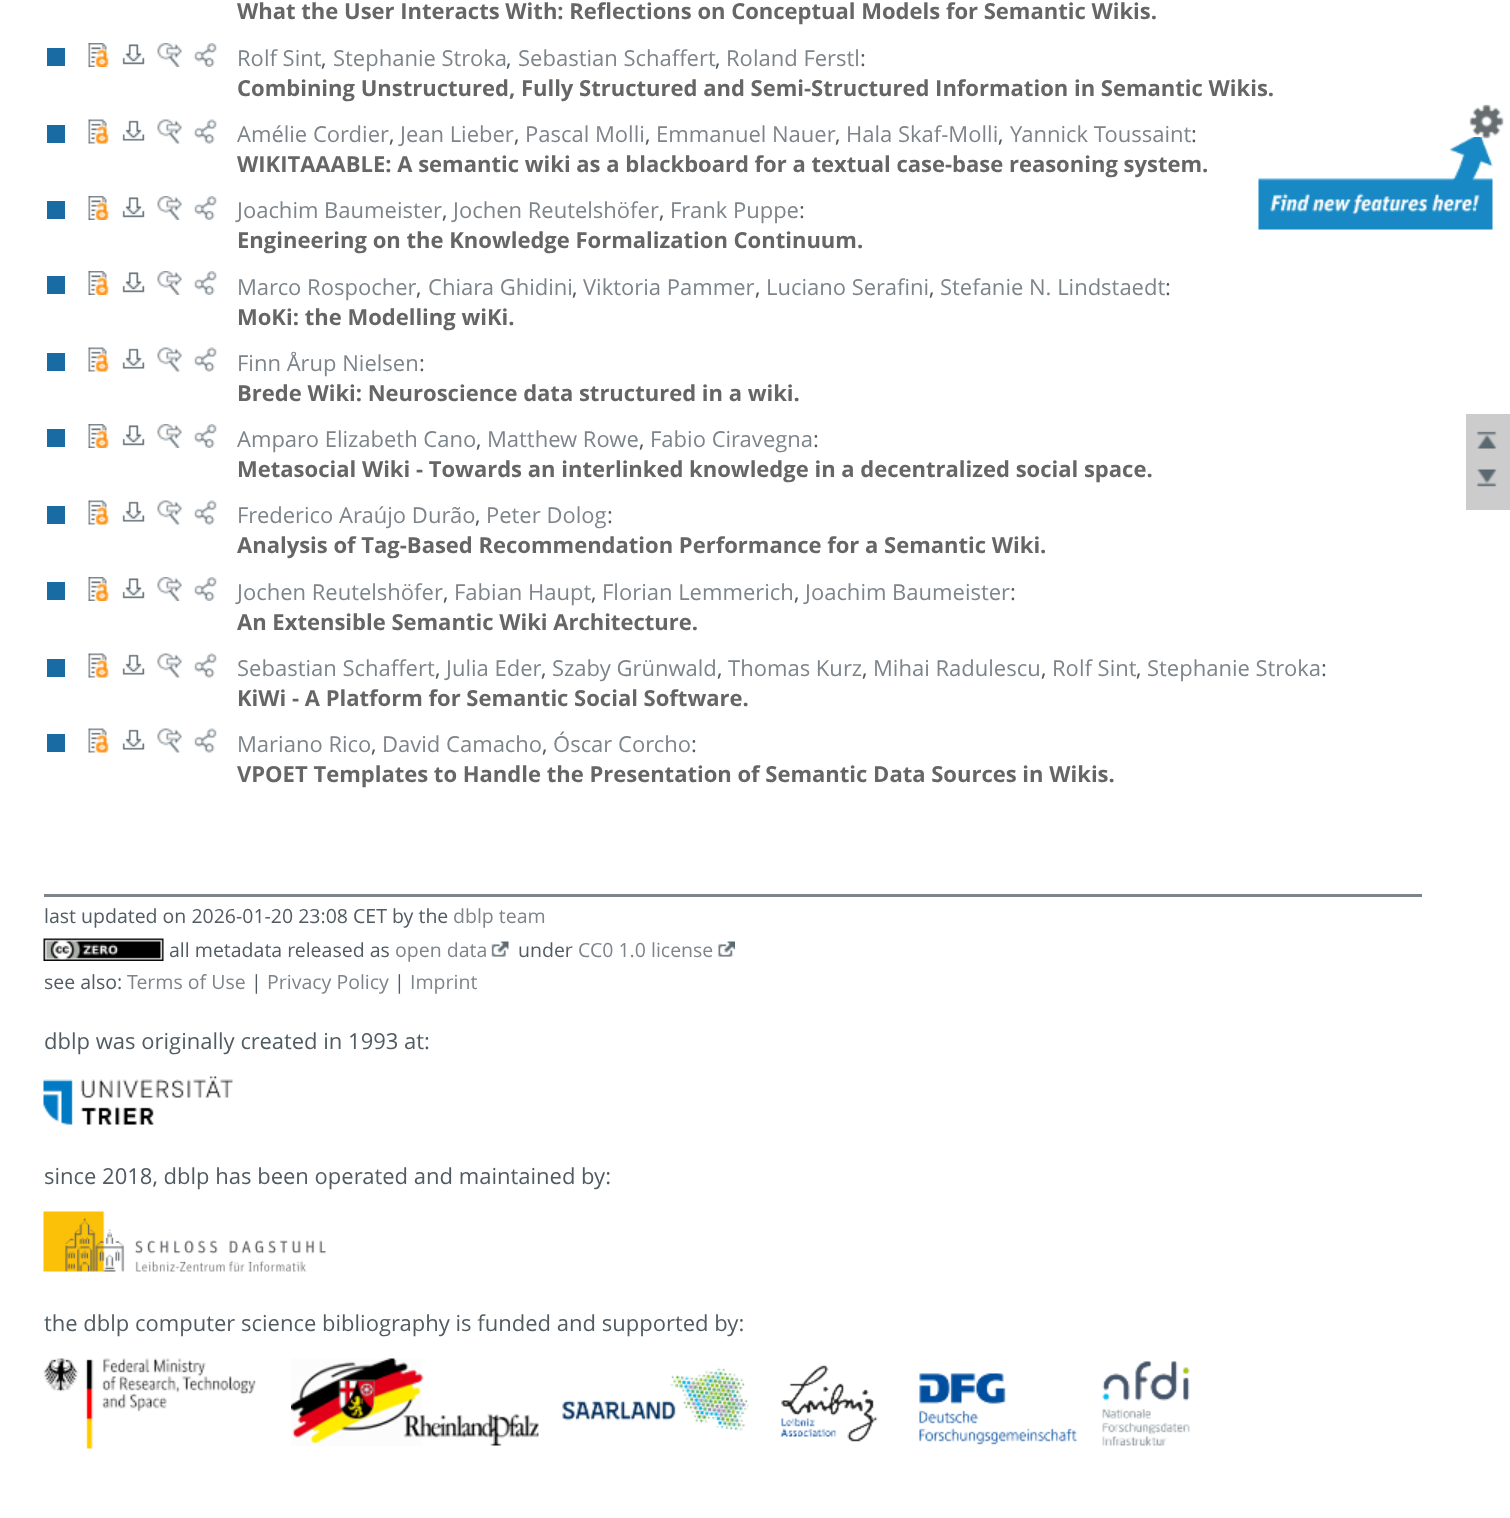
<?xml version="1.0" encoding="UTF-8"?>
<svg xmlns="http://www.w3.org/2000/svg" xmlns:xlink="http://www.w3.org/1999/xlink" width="1510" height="1518">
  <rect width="100%" height="100%" fill="#ffffff" />
  <rect x="47" y="48" width="18" height="18" fill="#196ca3" />
  <image x="88" y="43" width="22" height="24" xlink:href="image1.png" />
  <image x="122" y="44" width="23" height="21" xlink:href="image2.png" />
  <image x="157" y="43" width="25" height="24" xlink:href="image3.png" />
  <image x="193" y="43" width="24" height="24" xlink:href="image4.png" />
  <rect x="47" y="125" width="18" height="18" fill="#196ca3" />
  <image x="88" y="119" width="22" height="25" xlink:href="image5.png" />
  <image x="122" y="120" width="23" height="21" xlink:href="image6.png" />
  <image x="157" y="119" width="25" height="25" xlink:href="image7.png" />
  <image x="193" y="119" width="24" height="25" xlink:href="image8.png" />
  <rect x="47" y="201" width="18" height="18" fill="#196ca3" />
  <image x="88" y="196" width="22" height="24" xlink:href="image1.png" />
  <image x="122" y="197" width="23" height="21" xlink:href="image2.png" />
  <image x="157" y="196" width="25" height="24" xlink:href="image3.png" />
  <image x="193" y="196" width="24" height="24" xlink:href="image4.png" />
  <rect x="47" y="276" width="18" height="18" fill="#196ca3" />
  <image x="88" y="271" width="22" height="24" xlink:href="image1.png" />
  <image x="122" y="272" width="23" height="21" xlink:href="image2.png" />
  <image x="157" y="271" width="25" height="24" xlink:href="image3.png" />
  <image x="193" y="271" width="24" height="24" xlink:href="image4.png" />
  <rect x="47" y="353" width="18" height="18" fill="#196ca3" />
  <image x="88" y="347" width="22" height="25" xlink:href="image5.png" />
  <image x="122" y="348" width="23" height="21" xlink:href="image6.png" />
  <image x="157" y="347" width="25" height="25" xlink:href="image7.png" />
  <image x="193" y="347" width="24" height="25" xlink:href="image8.png" />
  <rect x="47" y="429" width="18" height="18" fill="#196ca3" />
  <image x="88" y="424" width="22" height="24" xlink:href="image1.png" />
  <image x="122" y="425" width="23" height="21" xlink:href="image2.png" />
  <image x="157" y="424" width="25" height="24" xlink:href="image3.png" />
  <image x="193" y="424" width="24" height="24" xlink:href="image4.png" />
  <rect x="47" y="506" width="18" height="18" fill="#196ca3" />
  <image x="88" y="500" width="22" height="25" xlink:href="image5.png" />
  <image x="122" y="501" width="23" height="21" xlink:href="image6.png" />
  <image x="157" y="500" width="25" height="25" xlink:href="image7.png" />
  <image x="193" y="500" width="24" height="25" xlink:href="image8.png" />
  <rect x="47" y="582" width="18" height="18" fill="#196ca3" />
  <image x="88" y="577" width="22" height="24" xlink:href="image1.png" />
  <image x="122" y="578" width="23" height="21" xlink:href="image2.png" />
  <image x="157" y="577" width="25" height="24" xlink:href="image3.png" />
  <image x="193" y="577" width="24" height="24" xlink:href="image4.png" />
  <rect x="47" y="659" width="18" height="18" fill="#196ca3" />
  <image x="88" y="653" width="22" height="25" xlink:href="image5.png" />
  <image x="122" y="654" width="23" height="21" xlink:href="image6.png" />
  <image x="157" y="653" width="25" height="25" xlink:href="image7.png" />
  <image x="193" y="653" width="24" height="25" xlink:href="image8.png" />
  <rect x="47" y="734" width="18" height="18" fill="#196ca3" />
  <image x="88" y="728" width="22" height="25" xlink:href="image5.png" />
  <image x="122" y="729" width="23" height="21" xlink:href="image6.png" />
  <image x="157" y="728" width="25" height="25" xlink:href="image7.png" />
  <image x="193" y="728" width="24" height="25" xlink:href="image8.png" />
  <image x="1258" y="137" width="235" height="93" xlink:href="image10.png" />
  <image x="1469" y="104" width="35" height="35" xlink:href="image9.png" />
  <rect x="1466" y="414" width="44" height="96" fill="#cccccc" />
  <image x="1476" y="431" width="21" height="18" xlink:href="image11.png" />
  <image x="1476" y="469" width="21" height="18" xlink:href="image12.png" />
  <rect x="44" y="894" width="1378" height="3" fill="#7d848a" />
  <image x="43" y="938" width="121" height="23" xlink:href="image13.png" />
  <image x="491" y="941" width="18" height="16" xlink:href="image14.png" />
  <image x="717" y="941" width="18" height="16" xlink:href="image15.png" />
  <image x="43" y="1076" width="190" height="49" xlink:href="image16.png" />
  <image x="43" y="1211" width="283" height="61" xlink:href="image17.png" />
  <image x="43" y="1358" width="213" height="91" xlink:href="image18.png" />
  <image x="291" y="1358" width="248" height="88" xlink:href="image19.png" />
  <image x="562" y="1367" width="187" height="64" xlink:href="image20.png" />
  <image x="780" y="1365" width="98" height="77" xlink:href="image21.png" />
  <image x="919" y="1373" width="159" height="72" xlink:href="image22.png" />
  <image x="1102" y="1360" width="88" height="86" xlink:href="image23.png" />
  <text x="237" y="19" style="font-family: Open Sans; font-size: 22px; font-weight: bold; fill: #666666">What the User Interacts With: Reflections on Conceptual Models for Semantic Wikis.</text>
  <text x="237" y="66" style="font-family: Open Sans; font-size: 22px; fill: #7d848a">Rolf Sint</text>
  <text x="321" y="66" style="font-family: Open Sans; font-size: 22px; fill: #505b62">,</text>
  <text x="333" y="66" style="font-family: Open Sans; font-size: 22px; fill: #7d848a">Stephanie Stroka</text>
  <text x="506" y="66" style="font-family: Open Sans; font-size: 22px; fill: #505b62">,</text>
  <text x="518" y="66" style="font-family: Open Sans; font-size: 22px; fill: #7d848a">Sebastian Schaffert</text>
  <text x="715" y="66" style="font-family: Open Sans; font-size: 22px; fill: #505b62">,</text>
  <text x="726" y="66" style="font-family: Open Sans; font-size: 22px; fill: #7d848a">Roland Ferstl</text>
  <text x="860" y="66" style="font-family: Open Sans; font-size: 22px; fill: #505b62">:</text>
  <text x="237" y="96" style="font-family: Open Sans; font-size: 22px; font-weight: bold; fill: #666666">Combining Unstructured, Fully Structured and Semi-Structured Information in Semantic Wikis.</text>
  <text x="237" y="142" style="font-family: Open Sans; font-size: 22px; fill: #7d848a">Amélie Cordier</text>
  <text x="389" y="142" style="font-family: Open Sans; font-size: 22px; fill: #505b62">,</text>
  <text x="400" y="142" style="font-family: Open Sans; font-size: 22px; fill: #7d848a">Jean Lieber</text>
  <text x="514" y="142" style="font-family: Open Sans; font-size: 22px; fill: #505b62">,</text>
  <text x="525" y="142" style="font-family: Open Sans; font-size: 22px; fill: #7d848a">Pascal Molli</text>
  <text x="645" y="142" style="font-family: Open Sans; font-size: 22px; fill: #505b62">,</text>
  <text x="656" y="142" style="font-family: Open Sans; font-size: 22px; fill: #7d848a">Emmanuel Nauer</text>
  <text x="835" y="142" style="font-family: Open Sans; font-size: 22px; fill: #505b62">,</text>
  <text x="846" y="142" style="font-family: Open Sans; font-size: 22px; fill: #7d848a">Hala Skaf-Molli</text>
  <text x="998" y="142" style="font-family: Open Sans; font-size: 22px; fill: #505b62">,</text>
  <text x="1010" y="142" style="font-family: Open Sans; font-size: 22px; fill: #7d848a">Yannick Toussaint</text>
  <text x="1191" y="142" style="font-family: Open Sans; font-size: 22px; fill: #505b62">:</text>
  <text x="237" y="172" style="font-family: Open Sans; font-size: 22px; font-weight: bold; fill: #666666">WIKITAAABLE: A semantic wiki as a blackboard for a textual case-base reasoning system.</text>
  <text x="237" y="218" style="font-family: Open Sans; font-size: 22px; fill: #7d848a">Joachim Baumeister</text>
  <text x="442" y="218" style="font-family: Open Sans; font-size: 22px; fill: #505b62">,</text>
  <text x="453" y="218" style="font-family: Open Sans; font-size: 22px; fill: #7d848a">Jochen Reutelshöfer</text>
  <text x="659" y="218" style="font-family: Open Sans; font-size: 22px; fill: #505b62">,</text>
  <text x="670" y="218" style="font-family: Open Sans; font-size: 22px; fill: #7d848a">Frank Puppe</text>
  <text x="799" y="218" style="font-family: Open Sans; font-size: 22px; fill: #505b62">:</text>
  <text x="237" y="248" style="font-family: Open Sans; font-size: 22px; font-weight: bold; fill: #666666">Engineering on the Knowledge Formalization Continuum.</text>
  <text x="237" y="295" style="font-family: Open Sans; font-size: 22px; fill: #7d848a">Marco Rospocher</text>
  <text x="416" y="295" style="font-family: Open Sans; font-size: 22px; fill: #505b62">,</text>
  <text x="428" y="295" style="font-family: Open Sans; font-size: 22px; fill: #7d848a">Chiara Ghidini</text>
  <text x="572" y="295" style="font-family: Open Sans; font-size: 22px; fill: #505b62">,</text>
  <text x="583" y="295" style="font-family: Open Sans; font-size: 22px; fill: #7d848a">Viktoria Pammer</text>
  <text x="755" y="295" style="font-family: Open Sans; font-size: 22px; fill: #505b62">,</text>
  <text x="766" y="295" style="font-family: Open Sans; font-size: 22px; fill: #7d848a">Luciano Serafini</text>
  <text x="929" y="295" style="font-family: Open Sans; font-size: 22px; fill: #505b62">,</text>
  <text x="940" y="295" style="font-family: Open Sans; font-size: 22px; fill: #7d848a">Stefanie N. Lindstaedt</text>
  <text x="1165" y="295" style="font-family: Open Sans; font-size: 22px; fill: #505b62">:</text>
  <text x="237" y="325" style="font-family: Open Sans; font-size: 22px; font-weight: bold; fill: #666666">MoKi: the Modelling wiKi.</text>
  <text x="237" y="371" style="font-family: Open Sans; font-size: 22px; fill: #7d848a">Finn Årup Nielsen</text>
  <text x="419" y="371" style="font-family: Open Sans; font-size: 22px; fill: #505b62">:</text>
  <text x="237" y="401" style="font-family: Open Sans; font-size: 22px; font-weight: bold; fill: #666666">Brede Wiki: Neuroscience data structured in a wiki.</text>
  <text x="237" y="447" style="font-family: Open Sans; font-size: 22px; fill: #7d848a">Amparo Elizabeth Cano</text>
  <text x="476" y="447" style="font-family: Open Sans; font-size: 22px; fill: #505b62">,</text>
  <text x="487" y="447" style="font-family: Open Sans; font-size: 22px; fill: #7d848a">Matthew Rowe</text>
  <text x="639" y="447" style="font-family: Open Sans; font-size: 22px; fill: #505b62">,</text>
  <text x="650" y="447" style="font-family: Open Sans; font-size: 22px; fill: #7d848a">Fabio Ciravegna</text>
  <text x="813" y="447" style="font-family: Open Sans; font-size: 22px; fill: #505b62">:</text>
  <text x="237" y="477" style="font-family: Open Sans; font-size: 22px; font-weight: bold; fill: #666666">Metasocial Wiki - Towards an interlinked knowledge in a decentralized social space.</text>
  <text x="237" y="523" style="font-family: Open Sans; font-size: 22px; fill: #7d848a">Frederico Araújo Durão</text>
  <text x="475" y="523" style="font-family: Open Sans; font-size: 22px; fill: #505b62">,</text>
  <text x="486" y="523" style="font-family: Open Sans; font-size: 22px; fill: #7d848a">Peter Dolog</text>
  <text x="607" y="523" style="font-family: Open Sans; font-size: 22px; fill: #505b62">:</text>
  <text x="237" y="553" style="font-family: Open Sans; font-size: 22px; font-weight: bold; fill: #666666">Analysis of Tag-Based Recommendation Performance for a Semantic Wiki.</text>
  <text x="237" y="600" style="font-family: Open Sans; font-size: 22px; fill: #7d848a">Jochen Reutelshöfer</text>
  <text x="443" y="600" style="font-family: Open Sans; font-size: 22px; fill: #505b62">,</text>
  <text x="454" y="600" style="font-family: Open Sans; font-size: 22px; fill: #7d848a">Fabian Haupt</text>
  <text x="591" y="600" style="font-family: Open Sans; font-size: 22px; fill: #505b62">,</text>
  <text x="602" y="600" style="font-family: Open Sans; font-size: 22px; fill: #7d848a">Florian Lemmerich</text>
  <text x="794" y="600" style="font-family: Open Sans; font-size: 22px; fill: #505b62">,</text>
  <text x="805" y="600" style="font-family: Open Sans; font-size: 22px; fill: #7d848a">Joachim Baumeister</text>
  <text x="1010" y="600" style="font-family: Open Sans; font-size: 22px; fill: #505b62">:</text>
  <text x="237" y="630" style="font-family: Open Sans; font-size: 22px; font-weight: bold; fill: #666666">An Extensible Semantic Wiki Architecture.</text>
  <text x="237" y="676" style="font-family: Open Sans; font-size: 22px; fill: #7d848a">Sebastian Schaffert</text>
  <text x="435" y="676" style="font-family: Open Sans; font-size: 22px; fill: #505b62">,</text>
  <text x="446" y="676" style="font-family: Open Sans; font-size: 22px; fill: #7d848a">Julia Eder</text>
  <text x="541" y="676" style="font-family: Open Sans; font-size: 22px; fill: #505b62">,</text>
  <text x="552" y="676" style="font-family: Open Sans; font-size: 22px; fill: #7d848a">Szaby Grünwald</text>
  <text x="717" y="676" style="font-family: Open Sans; font-size: 22px; fill: #505b62">,</text>
  <text x="728" y="676" style="font-family: Open Sans; font-size: 22px; fill: #7d848a">Thomas Kurz</text>
  <text x="862" y="676" style="font-family: Open Sans; font-size: 22px; fill: #505b62">,</text>
  <text x="873" y="676" style="font-family: Open Sans; font-size: 22px; fill: #7d848a">Mihai Radulescu</text>
  <text x="1041" y="676" style="font-family: Open Sans; font-size: 22px; fill: #505b62">,</text>
  <text x="1052" y="676" style="font-family: Open Sans; font-size: 22px; fill: #7d848a">Rolf Sint</text>
  <text x="1136" y="676" style="font-family: Open Sans; font-size: 22px; fill: #505b62">,</text>
  <text x="1147" y="676" style="font-family: Open Sans; font-size: 22px; fill: #7d848a">Stephanie Stroka</text>
  <text x="1321" y="676" style="font-family: Open Sans; font-size: 22px; fill: #505b62">:</text>
  <text x="237" y="706" style="font-family: Open Sans; font-size: 22px; font-weight: bold; fill: #666666">KiWi - A Platform for Semantic Social Software.</text>
  <text x="237" y="752" style="font-family: Open Sans; font-size: 22px; fill: #7d848a">Mariano Rico</text>
  <text x="371" y="752" style="font-family: Open Sans; font-size: 22px; fill: #505b62">,</text>
  <text x="382" y="752" style="font-family: Open Sans; font-size: 22px; fill: #7d848a">David Camacho</text>
  <text x="542" y="752" style="font-family: Open Sans; font-size: 22px; fill: #505b62">,</text>
  <text x="553" y="752" style="font-family: Open Sans; font-size: 22px; fill: #7d848a">Óscar Corcho</text>
  <text x="691" y="752" style="font-family: Open Sans; font-size: 22px; fill: #505b62">:</text>
  <text x="237" y="782" style="font-family: Open Sans; font-size: 22px; font-weight: bold; fill: #666666">VPOET Templates to Handle the Presentation of Semantic Data Sources in Wikis.</text>
  <text x="44" y="923" style="font-family: Open Sans; font-size: 19.5px; fill: #505b62">last updated on 2026-01-20 23:08 CET by the</text>
  <text x="453" y="923" style="font-family: Open Sans; font-size: 19.5px; fill: #7d848a">dblp team</text>
  <text x="169" y="957" style="font-family: Open Sans; font-size: 19.5px; fill: #505b62">all metadata released as</text>
  <text x="395" y="957" style="font-family: Open Sans; font-size: 19.5px; fill: #7d848a">open data</text>
  <text x="518" y="957" style="font-family: Open Sans; font-size: 19.5px; fill: #505b62">under</text>
  <text x="578" y="957" style="font-family: Open Sans; font-size: 19.5px; fill: #7d848a">CC0 1.0 license</text>
  <text x="44" y="989" style="font-family: Open Sans; font-size: 19.5px; fill: #505b62">see also:</text>
  <text x="127" y="989" style="font-family: Open Sans; font-size: 19.5px; fill: #7d848a">Terms of Use</text>
  <text x="251" y="989" style="font-family: Open Sans; font-size: 19.5px; fill: #505b62">|</text>
  <text x="267" y="989" style="font-family: Open Sans; font-size: 19.5px; fill: #7d848a">Privacy Policy</text>
  <text x="394" y="989" style="font-family: Open Sans; font-size: 19.5px; fill: #505b62">|</text>
  <text x="410" y="989" style="font-family: Open Sans; font-size: 19.5px; fill: #7d848a">Imprint</text>
  <text x="44" y="1049" style="font-family: Open Sans; font-size: 22px; fill: #505b62">dblp was originally created in 1993 at:</text>
  <text x="44" y="1184" style="font-family: Open Sans; font-size: 22px; fill: #505b62">since 2018, dblp has been operated and maintained by:</text>
  <text x="44" y="1331" style="font-family: Open Sans; font-size: 22px; fill: #505b62">the dblp computer science bibliography is funded and supported by:</text>
</svg>
